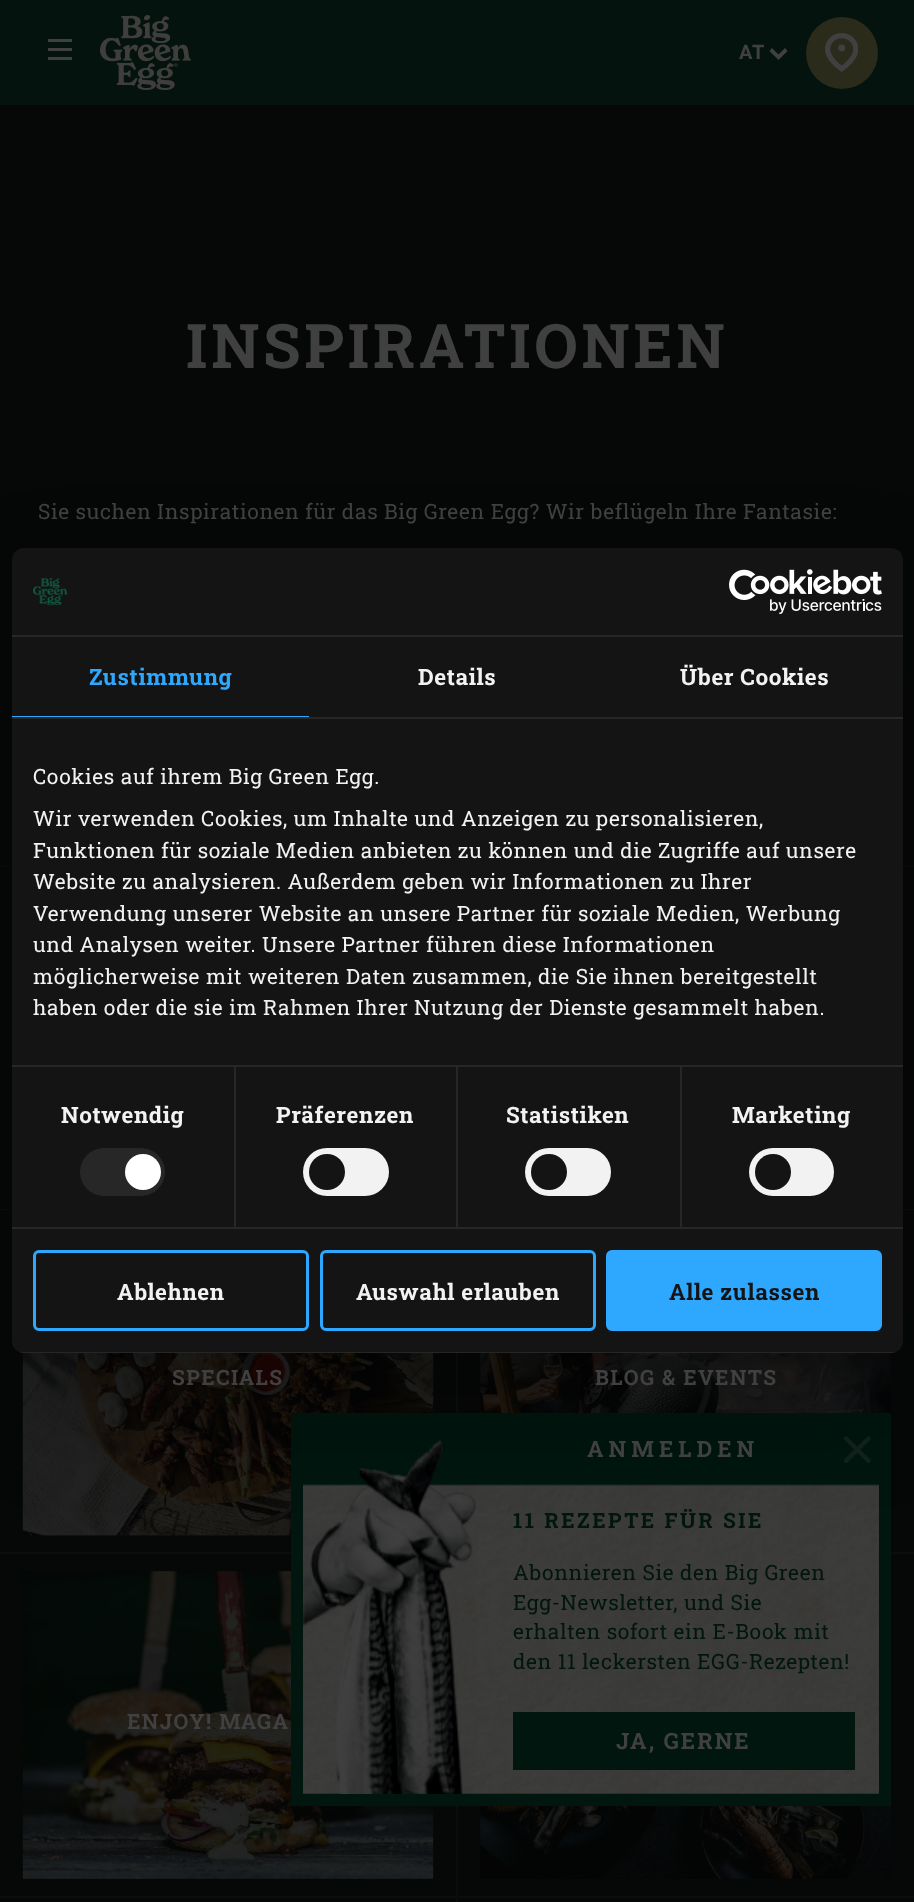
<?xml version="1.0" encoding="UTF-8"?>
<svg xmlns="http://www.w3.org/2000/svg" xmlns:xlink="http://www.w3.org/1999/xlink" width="914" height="1902">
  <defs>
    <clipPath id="clip1"><rect x="12" y="548" width="891" height="805" rx="12" /></clipPath>
  </defs>
  <rect width="100%" height="100%" fill="#060807" />
  <rect width="914" height="105" fill="#04130e" />
  <rect x="48" y="39" width="24" height="3" fill="#404040" />
  <rect x="48" y="48" width="24" height="3" fill="#404040" />
  <rect x="48" y="57" width="24" height="3" fill="#404040" />
  <image x="100" y="15" width="91" height="75" xlink:href="image1.png" />
  <path d="M 787.5 51 l -2.5 -3 l -6.5 6.5 l -6.5 -6.5 l -2.5 3 l 9 9 z" fill="#404040" />
  <circle cx="842" cy="53" r="36" fill="#2a2b1a" />
  <image x="825" y="33" width="33" height="39" xlink:href="image2.png" />
  <path d="M 0 866 h 458 l -2 1 h -456 z" fill="#0b0c0c" />
  <path d="M 458 1210 h -458 v -1 h 456 z" fill="#101010" fill-opacity="0.5" />
  <path d="M 458 866 h 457 l -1 1 h -456 z" fill="#0b0c0c" />
  <path d="M 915 1210 h -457 v -1 h 456 z" fill="#0b0c0c" />
  <path d="M 458 1210 v 344 l -2 -2 v -342 z" fill="#0b0c0c" />
  <path d="M 458 1554 h -458 v -2 h 456 z" fill="#101010" fill-opacity="0.5" />
  <image x="22" y="1352" width="412" height="184" xlink:href="image3.png" />
  <rect x="22" y="1352" width="412" height="184" fill="#060807" fill-opacity="0.5" />
  <path d="M 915 1554 h -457 v -2 h 456 z" fill="#0b0c0c" />
  <image x="480" y="1353" width="411" height="60" xlink:href="image4.png" />
  <rect x="480" y="1353" width="411" height="60" fill="#060807" fill-opacity="0.5" />
  <path d="M 458 1554 v 344 l -2 -2 v -342 z" fill="#0b0c0c" />
  <path d="M 458 1898 h -458 v -2 h 456 z" fill="#101010" fill-opacity="0.5" />
  <image x="22" y="1571" width="412" height="308" xlink:href="image5.png" />
  <path d="M 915 1898 h -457 v -2 h 456 z" fill="#0b0c0c" />
  <image x="480" y="1806" width="411" height="73" xlink:href="image6.png" />
  <path d="M 458 1898 v 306 l -2 -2 v -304 z" fill="#0b0c0c" />
  <rect x="291" y="1413" width="600" height="393" fill="#00160f" />
  <image x="303" y="1484" width="576" height="310" xlink:href="image10.png" />
  <image x="303" y="1439" width="173" height="355" xlink:href="image9.png" />
  <path d="M 870 1437 c 1 1 1 2.5 0 3 l -22.5 22.5 c -0.5 1 -2 1 -3 0 c -1 -1 -1 -2.5 0 -3.5 l 22.5 -22 c 0.5 -1 2 -1 3 0 z" fill="#13221e" />
  <path d="M 844.5 1437 c 1 -1 2.5 -1 3 0 l 22.5 22 c 1 1 1 2.5 0 3.5 c -1 1 -2.5 1 -3 0 l -22.5 -22.5 c -1 -0.5 -1 -2 0 -3 z" fill="#13221e" />
  <rect x="12" y="596" width="891" height="805" rx="12" fill="#000000" fill-opacity="0.3" filter="blur(51px)" />
  <rect x="12" y="548" width="891" height="805" rx="12" fill="#141414" />
  <rect x="12" y="635" width="891" height="2" fill="#272727" />
  <image x="33" y="578" width="35" height="28" xlink:href="image7.png" />
  <image x="729" y="569" width="153" height="45" xlink:href="image8.png" />
  <rect x="12" y="717" width="891" height="2" fill="#272727" />
  <rect x="12" y="716" width="297" height="1" fill="#2ea7ff" />
  <rect x="12" y="1065" width="891" height="2" fill="#272727" />
  <rect x="12" y="1227" width="891" height="2" fill="#272727" />
  <rect x="234" y="1067" width="2" height="160" fill="#272727" />
  <rect x="80" y="1148" width="85" height="48" rx="24" fill="#272727" />
  <circle cx="143" cy="1172" r="18" fill="#ffffff" />
  <rect x="456" y="1067" width="2" height="160" fill="#272727" />
  <rect x="303" y="1148" width="86" height="48" rx="24" fill="#f2f2f2" />
  <circle cx="327" cy="1172" r="18" fill="#141414" />
  <rect x="680" y="1067" width="2" height="160" fill="#272727" />
  <rect x="525" y="1148" width="86" height="48" rx="24" fill="#f2f2f2" />
  <circle cx="549" cy="1172" r="18" fill="#141414" />
  <rect x="749" y="1148" width="85" height="48" rx="24" fill="#f2f2f2" />
  <circle cx="773" cy="1172" r="18" fill="#141414" />
  <g clip-path="url(#clip1)">
    <rect x="12" y="1352" width="891" height="1" fill="#ffffff" fill-opacity="0.08" />
  </g>
  <rect x="34.5" y="1251.5" width="273" height="78" rx="4.5" fill="none" stroke="#2ea7ff" stroke-width="3" />
  <rect x="321.5" y="1251.5" width="273" height="78" rx="4.5" fill="none" stroke="#2ea7ff" stroke-width="3" />
  <rect x="607.5" y="1251.5" width="273" height="78" rx="4.5" fill="#2ea7ff" stroke="#2ea7ff" stroke-width="3" />
  <rect x="513" y="1712" width="342" height="58" fill="#00160f" />
  <text x="739" y="59" style="font-family: Roboto; font-size: 20px; font-weight: bold; letter-spacing: 0.6px; fill: #404040">AT</text>
  <text x="186" y="368" style="font-family: Roboto Slab; font-size: 61.5px; font-weight: bold; letter-spacing: 3.75px; fill: #404040">INSPIRATIONEN</text>
  <text x="38" y="519" style="font-family: Roboto Slab; font-size: 21px; letter-spacing: 0.6px; fill: #404040">Sie suchen Inspirationen für das Big Green Egg? Wir beflügeln Ihre Fantasie:</text>
  <text x="172" y="1385" style="font-family: Roboto Slab; font-size: 21px; font-weight: bold; letter-spacing: 1.4px; fill: #404040">SPECIALS</text>
  <text x="595" y="1385" style="font-family: Roboto Slab; font-size: 21px; font-weight: bold; letter-spacing: 1.4px; fill: #404040">BLOG &amp; EVENTS</text>
  <text x="127" y="1729" style="font-family: Roboto Slab; font-size: 21px; font-weight: bold; letter-spacing: 1.4px; fill: #404040">ENJOY! MAGA</text>
  <text x="89" y="685" style="font-family: Roboto Slab; font-size: 22.5px; font-weight: bold; letter-spacing: 0.6px; fill: #2ea7ff">Zustimmung</text>
  <text x="418" y="685" style="font-family: Roboto Slab; font-size: 22.5px; font-weight: bold; letter-spacing: 0.6px; fill: #f2f2f2">Details</text>
  <text x="680" y="685" style="font-family: Roboto Slab; font-size: 22.5px; font-weight: bold; letter-spacing: 0.6px; fill: #f2f2f2">Über Cookies</text>
  <text x="33" y="784" style="font-family: Roboto Slab; font-size: 21px; letter-spacing: 0.6px; fill: #f2f2f2">Cookies auf ihrem Big Green Egg.</text>
  <text x="33" y="826" style="font-family: Roboto Slab; font-size: 21px; letter-spacing: 0.6px; fill: #f2f2f2">Wir verwenden Cookies, um Inhalte und Anzeigen zu personalisieren,</text>
  <text x="33" y="858" style="font-family: Roboto Slab; font-size: 21px; letter-spacing: 0.6px; fill: #f2f2f2">Funktionen für soziale Medien anbieten zu können und die Zugriffe auf unsere</text>
  <text x="33" y="889" style="font-family: Roboto Slab; font-size: 21px; letter-spacing: 0.6px; fill: #f2f2f2">Website zu analysieren. Außerdem geben wir Informationen zu Ihrer</text>
  <text x="33" y="921" style="font-family: Roboto Slab; font-size: 21px; letter-spacing: 0.6px; fill: #f2f2f2">Verwendung unserer Website an unsere Partner für soziale Medien, Werbung</text>
  <text x="33" y="952" style="font-family: Roboto Slab; font-size: 21px; letter-spacing: 0.6px; fill: #f2f2f2">und Analysen weiter. Unsere Partner führen diese Informationen</text>
  <text x="33" y="984" style="font-family: Roboto Slab; font-size: 21px; letter-spacing: 0.6px; fill: #f2f2f2">möglicherweise mit weiteren Daten zusammen, die Sie ihnen bereitgestellt</text>
  <text x="33" y="1015" style="font-family: Roboto Slab; font-size: 21px; letter-spacing: 0.6px; fill: #f2f2f2">haben oder die sie im Rahmen Ihrer Nutzung der Dienste gesammelt haben.</text>
  <text x="61" y="1123" style="font-family: Roboto Slab; font-size: 22.5px; font-weight: bold; letter-spacing: 0.6px; fill: #f2f2f2">Notwendig</text>
  <text x="276" y="1123" style="font-family: Roboto Slab; font-size: 22.5px; font-weight: bold; letter-spacing: 0.6px; fill: #f2f2f2">Präferenzen</text>
  <text x="506" y="1123" style="font-family: Roboto Slab; font-size: 22.5px; font-weight: bold; letter-spacing: 0.6px; fill: #f2f2f2">Statistiken</text>
  <text x="732" y="1123" style="font-family: Roboto Slab; font-size: 22.5px; font-weight: bold; letter-spacing: 0.6px; fill: #f2f2f2">Marketing</text>
  <text x="117" y="1300" style="font-family: Roboto Slab; font-size: 22.5px; font-weight: bold; letter-spacing: 0.6px; fill: #f2f2f2">Ablehnen</text>
  <text x="356" y="1300" style="font-family: Roboto Slab; font-size: 22.5px; font-weight: bold; letter-spacing: 0.6px; fill: #f2f2f2">Auswahl erlauben</text>
  <text x="669" y="1300" style="font-family: Roboto Slab; font-size: 22.5px; font-weight: bold; letter-spacing: 0.6px; fill: #141414">Alle zulassen</text>
  <text x="587" y="1457" style="font-family: Roboto Slab; font-size: 22.5px; font-weight: bold; letter-spacing: 5px; fill: #404040">ANMELDEN</text>
  <text x="513" y="1528" style="font-family: Roboto Slab; font-size: 21px; font-weight: bold; letter-spacing: 2.5px; fill: #00160f">11 REZEPTE FÜR SIE</text>
  <text x="513" y="1580" style="font-family: Roboto Slab; font-size: 21px; letter-spacing: 0.6px; fill: #00160f">Abonnieren Sie den Big Green</text>
  <text x="513" y="1610" style="font-family: Roboto Slab; font-size: 21px; letter-spacing: 0.6px; fill: #00160f">Egg-Newsletter, und Sie</text>
  <text x="513" y="1639" style="font-family: Roboto Slab; font-size: 21px; letter-spacing: 0.6px; fill: #00160f">erhalten sofort ein E-Book mit</text>
  <text x="513" y="1669" style="font-family: Roboto Slab; font-size: 21px; letter-spacing: 0.6px; fill: #00160f">den 11 leckersten EGG-Rezepten!</text>
  <text x="616" y="1749" style="font-family: Roboto Slab; font-size: 22.5px; font-weight: bold; letter-spacing: 2px; fill: #404040">JA, GERNE</text>
</svg>
